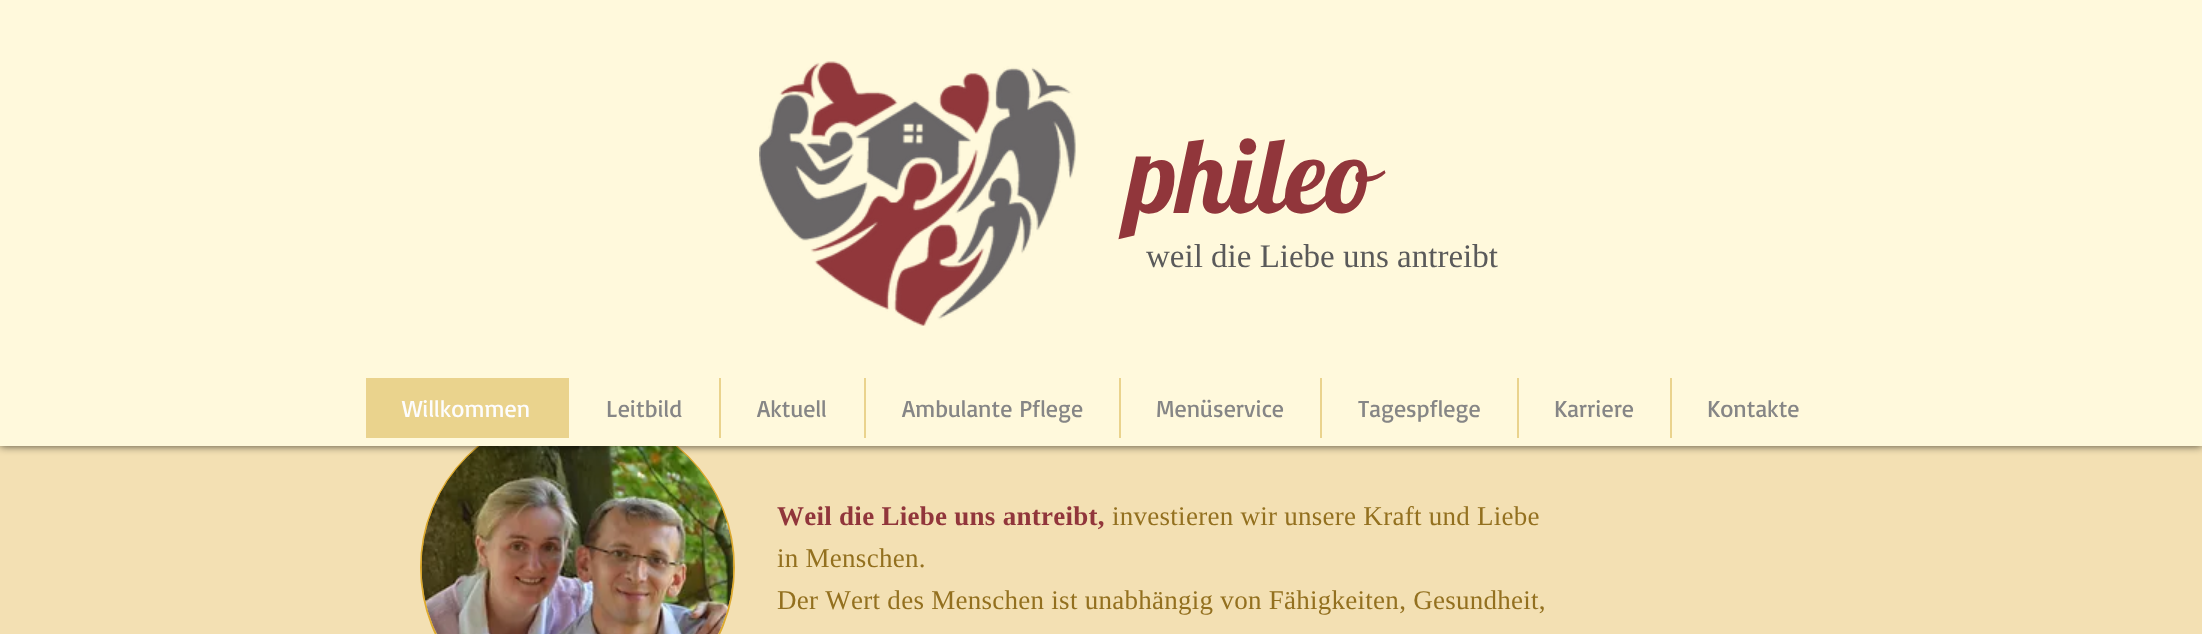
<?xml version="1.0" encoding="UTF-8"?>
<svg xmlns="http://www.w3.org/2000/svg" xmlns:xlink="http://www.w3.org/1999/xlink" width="2202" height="634">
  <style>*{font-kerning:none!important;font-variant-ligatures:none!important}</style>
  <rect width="100%" height="100%" fill="#f3e0b3" />
  <circle cx="577.5" cy="567.5" r="156.5" fill="none" stroke="#dda92e" stroke-width="2" />
  <image x="421" y="446" width="313" height="188" xlink:href="image2.png" />
  <rect width="2202" height="446" fill="#000000" fill-opacity="0.7" filter="blur(4px)" />
  <rect width="2202" height="446" fill="#fff9dc" />
  <image x="759" y="61" width="317" height="265" xlink:href="image1.png" />
  <rect x="366" y="378" width="203" height="60" fill="#ead38d" />
  <rect x="719" y="378" width="2" height="60" fill="#ead38d" />
  <rect x="864" y="378" width="2" height="60" fill="#ead38d" />
  <rect x="1119" y="378" width="2" height="60" fill="#ead38d" />
  <rect x="1320" y="378" width="2" height="60" fill="#ead38d" />
  <rect x="1517" y="378" width="2" height="60" fill="#ead38d" />
  <rect x="1670" y="378" width="2" height="60" fill="#ead38d" />
  <text x="1128" y="213" style="font-family: Lobster; font-size: 105px; fill: #91363b">phileo</text>
  <text x="1146" y="267" style="font-family: Liberation Serif; font-size: 33px; fill: #5a5a5a">weil die Liebe uns antreibt</text>
  <text x="402" y="417" style="font-family: Basic; font-size: 24px; fill: #fdfdfe">Willkommen</text>
  <text x="606" y="417" style="font-family: Basic; font-size: 24px; fill: #868686">Leitbild</text>
  <text x="757" y="417" style="font-family: Basic; font-size: 24px; fill: #868686">Aktuell</text>
  <text x="902" y="417" style="font-family: Basic; font-size: 24px; fill: #868686">Ambulante Pflege</text>
  <text x="1156" y="417" style="font-family: Basic; font-size: 24px; fill: #868686">Menüservice</text>
  <text x="1358" y="417" style="font-family: Basic; font-size: 24px; fill: #868686">Tagespflege</text>
  <text x="1554" y="417" style="font-family: Basic; font-size: 24px; fill: #868686">Karriere</text>
  <text x="1707" y="417" style="font-family: Basic; font-size: 24px; fill: #868686">Kontakte</text>
  <text x="777" y="525" style="font-family: Liberation Serif; font-size: 27px; font-weight: bold; letter-spacing: 0.27px; fill: #91363b">Weil die Liebe uns antreibt,</text>
  <text x="1112" y="525" style="font-family: Liberation Serif; font-size: 27px; letter-spacing: 0.27px; fill: #93701f">investieren wir unsere Kraft und Liebe</text>
  <text x="777" y="567" style="font-family: Liberation Serif; font-size: 27px; letter-spacing: 0.27px; fill: #93701f">in Menschen.</text>
  <text x="777" y="609" style="font-family: Liberation Serif; font-size: 27px; letter-spacing: 0.27px; fill: #93701f">Der Wert des Menschen ist unabhängig von Fähigkeiten, Gesundheit,</text>
</svg>
